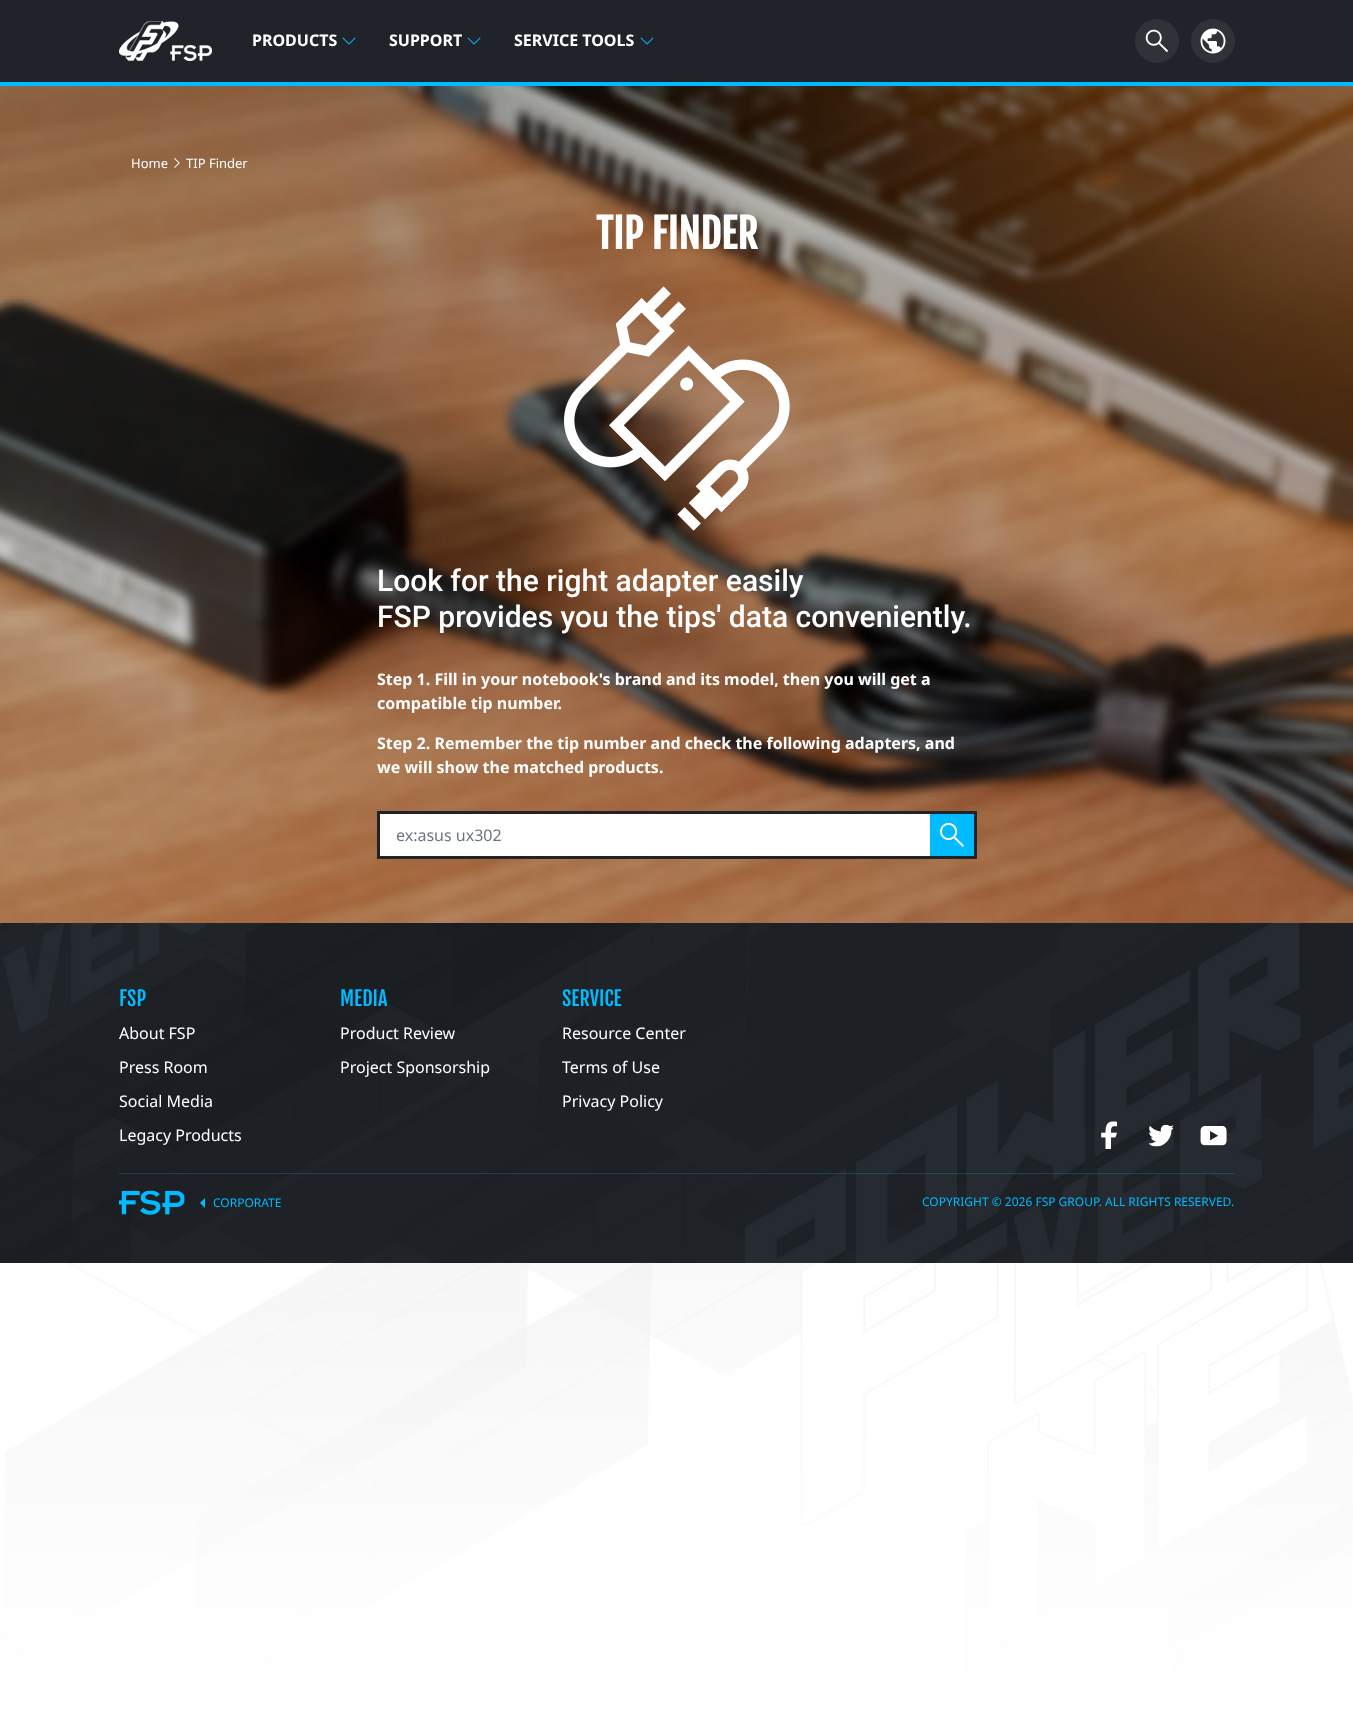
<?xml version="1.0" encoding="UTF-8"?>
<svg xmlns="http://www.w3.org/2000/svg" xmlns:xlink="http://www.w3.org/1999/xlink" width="1353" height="1735">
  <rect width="100%" height="100%" fill="#ffffff" />
  <rect width="1353" height="82" fill="#202329" />
  <rect y="82" width="1353" height="4" fill="#00bbff" />
  <image x="119" y="21" width="93" height="40" xlink:href="image1.png" />
  <image x="342" y="37" width="14" height="8" xlink:href="image2.png" />
  <image x="467" y="37" width="14" height="8" xlink:href="image2.png" />
  <image x="640" y="37" width="14" height="8" xlink:href="image2.png" />
  <circle cx="1157" cy="41" r="22" fill="#303239" />
  <image x="1145" y="29" width="24" height="24" xlink:href="image3.png" />
  <circle cx="1213" cy="41" r="22" fill="#303239" />
  <image x="1200" y="28" width="26" height="26" xlink:href="image4.png" />
  <image x="0" y="86" width="1353" height="837" xlink:href="image5.png" />
  <image x="174" y="158" width="6" height="10" xlink:href="image6.png" />
  <image x="564" y="286" width="226" height="245" xlink:href="image7.png" />
  <rect x="380" y="814" width="550" height="42" fill="#ffffff" />
  <rect x="378.5" y="812.5" width="597" height="45" fill="none" stroke="#202329" stroke-width="3" />
  <rect x="930" y="814" width="44" height="42" fill="#00bbff" />
  <image x="940" y="823" width="24" height="24" xlink:href="image8.png" />
  <image x="0" y="1263" width="1353" height="472" xlink:href="image9.png" />
  <image x="0" y="923" width="1353" height="340" xlink:href="image10.png" />
  <image x="1101" y="1121" width="16" height="28" xlink:href="image11.png" />
  <image x="1148" y="1124" width="26" height="23" xlink:href="image12.png" />
  <image x="1200" y="1126" width="27" height="20" xlink:href="image13.png" />
  <rect x="119" y="1173" width="1116" height="1" fill="#00ccff" fill-opacity="0.2" />
  <image x="119" y="1190" width="66" height="25" xlink:href="image14.png" />
  <path d="M 205 1198 v 10 l -5 -5 z" fill="#00bbff" />
  <text x="252" y="46" style="font-family: Noto Sans; font-size: 16px; font-weight: bold; fill: #ffffff">PRODUCTS</text>
  <text x="389" y="46" style="font-family: Noto Sans; font-size: 16px; font-weight: bold; fill: #ffffff">SUPPORT</text>
  <text x="514" y="46" style="font-family: Noto Sans; font-size: 16px; font-weight: bold; fill: #ffffff">SERVICE TOOLS</text>
  <text x="131" y="168" style="font-family: Noto Sans; font-size: 13px; fill: #ffffff">Home</text>
  <text x="186" y="168" style="font-family: Noto Sans; font-size: 13px; fill: #ffffff">TIP Finder</text>
  <text x="596" y="249" style="font-family: Fjalla One; font-size: 40px; font-weight: bold; fill: #ffffff">TIP FINDER</text>
  <text x="377" y="591" style="font-family: Roboto; font-size: 30px; font-weight: 500; fill: #ffffff">Look for the right adapter easily</text>
  <text x="377" y="627" style="font-family: Roboto; font-size: 30px; font-weight: 500; fill: #ffffff">FSP provides you the tips' data conveniently.</text>
  <text x="377" y="685" style="font-family: Noto Sans; font-size: 16px; font-weight: bold; fill: #ffffff">Step 1. Fill in your notebook's brand and its model, then you will get a</text>
  <text x="377" y="709" style="font-family: Noto Sans; font-size: 16px; font-weight: bold; fill: #ffffff">compatible tip number.</text>
  <text x="377" y="749" style="font-family: Noto Sans; font-size: 16px; font-weight: bold; fill: #ffffff">Step 2. Remember the tip number and check the following adapters, and</text>
  <text x="377" y="773" style="font-family: Noto Sans; font-size: 16px; font-weight: bold; fill: #ffffff">we will show the matched products.</text>
  <text x="396" y="841" style="font-family: Noto Sans; font-size: 16px; fill: #6c757d">ex:asus ux302</text>
  <text x="119" y="1006" style="font-family: Fjalla One; font-size: 20px; fill: #00bbff">FSP</text>
  <text x="119" y="1039" style="font-family: Noto Sans; font-size: 16px; fill: #ffffff">About FSP</text>
  <text x="119" y="1073" style="font-family: Noto Sans; font-size: 16px; fill: #ffffff">Press Room</text>
  <text x="119" y="1107" style="font-family: Noto Sans; font-size: 16px; fill: #ffffff">Social Media</text>
  <text x="119" y="1141" style="font-family: Noto Sans; font-size: 16px; fill: #ffffff">Legacy Products</text>
  <text x="340" y="1006" style="font-family: Fjalla One; font-size: 20px; fill: #00bbff">MEDIA</text>
  <text x="340" y="1039" style="font-family: Noto Sans; font-size: 16px; fill: #ffffff">Product Review</text>
  <text x="340" y="1073" style="font-family: Noto Sans; font-size: 16px; fill: #ffffff">Project Sponsorship</text>
  <text x="562" y="1006" style="font-family: Fjalla One; font-size: 20px; fill: #00bbff">SERVICE</text>
  <text x="562" y="1039" style="font-family: Noto Sans; font-size: 16px; fill: #ffffff">Resource Center</text>
  <text x="562" y="1073" style="font-family: Noto Sans; font-size: 16px; fill: #ffffff">Terms of Use</text>
  <text x="562" y="1107" style="font-family: Noto Sans; font-size: 16px; fill: #ffffff">Privacy Policy</text>
  <text x="213" y="1207" style="font-family: Noto Sans; font-size: 12px; fill: #00bbff">CORPORATE</text>
  <text x="922" y="1206" style="font-family: Noto Sans; font-size: 12px; fill: #00bbff">COPYRIGHT © 2026 FSP GROUP. ALL RIGHTS RESERVED.</text>
</svg>
